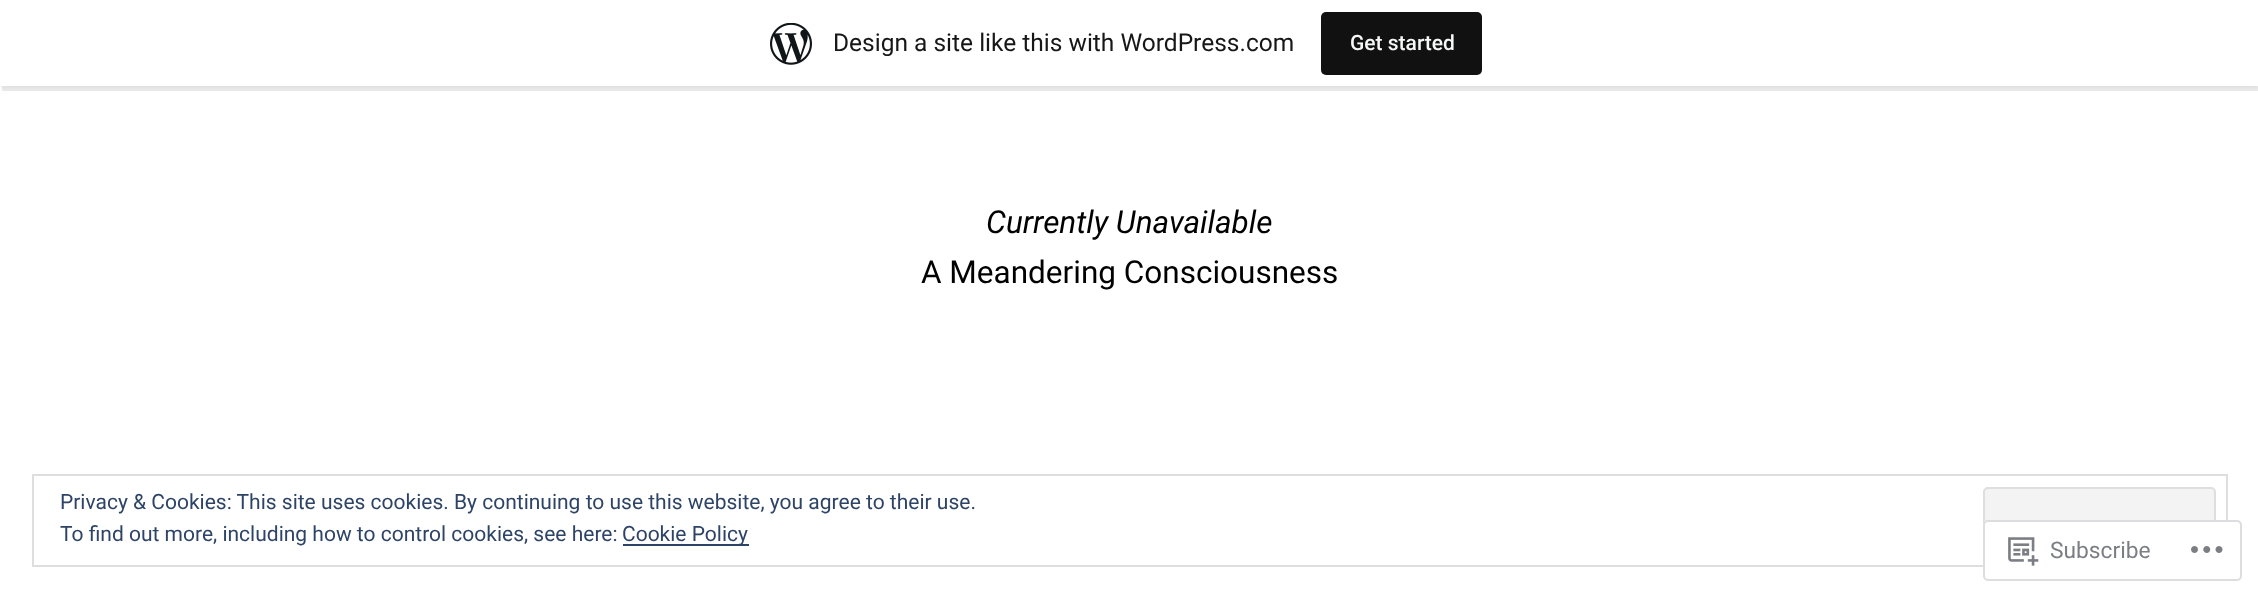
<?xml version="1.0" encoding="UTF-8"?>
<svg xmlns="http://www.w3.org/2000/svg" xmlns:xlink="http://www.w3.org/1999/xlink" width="2258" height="598">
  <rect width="100%" height="100%" fill="#ffffff" />
  <rect y="2" width="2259" height="86" fill="#000000" fill-opacity="0.05" filter="blur(2px)" />
  <path d="M 2 86 v 5 h 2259 v -86 h -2 v 81 z" fill="#000000" fill-opacity="0.08" />
  <rect width="2258" height="86" fill="#ffffff" />
  <image x="770" y="23" width="42" height="42" xlink:href="image1.png" />
  <rect x="1321" y="12" width="161" height="63" rx="5" fill="#111111" />
  <rect x="33" y="475" width="2194" height="91" fill="none" stroke="#dedede" stroke-width="2" />
  <rect x="1984" y="488" width="231" height="66" rx="4" fill="#f3f3f3" stroke="#dedede" stroke-width="2" />
  <rect x="623" y="544" width="126" height="2" fill="#2e4467" />
  <rect x="1983" y="520" width="259" height="61" rx="5" fill="#ffffff" fill-opacity="0.98" />
  <rect x="1984" y="521" width="257" height="59" rx="4" fill="none" stroke="#dcdcde" stroke-opacity="0.98" stroke-width="2" />
  <image x="2008" y="537" width="31" height="29" xlink:href="image2.png" />
  <image x="2191" y="546" width="32" height="7" xlink:href="image3.png" />
  <text x="833" y="51" style="font-family: Roboto; font-size: 24.5px; fill: #171717">Design a site like this with WordPress.com</text>
  <text x="1350" y="50" style="font-family: Roboto; font-size: 21px; font-weight: 500; fill: #f6f7f7">Get started</text>
  <text x="986" y="233" style="font-family: Roboto; font-size: 31.5px; font-style: italic; fill: #000000">Currently Unavailable</text>
  <text x="921" y="283" style="font-family: Roboto; font-size: 31.5px; fill: #000000">A Meandering Consciousness</text>
  <text x="60" y="509" style="font-family: Roboto; font-size: 21px; fill: #2e4467">Privacy &amp; Cookies: This site uses cookies. By continuing to use this website, you agree to their use.</text>
  <text x="60" y="541" style="font-family: Roboto; font-size: 21px; fill: #2e4467">To find out more, including how to control cookies, see here:</text>
  <text x="622" y="541" style="font-family: Roboto; font-size: 21px; fill: #2e4467">Cookie Policy</text>
  <text x="2050" y="558" style="font-family: Roboto; font-size: 22.75px; fill: #7b7f84">Subscribe</text>
</svg>
